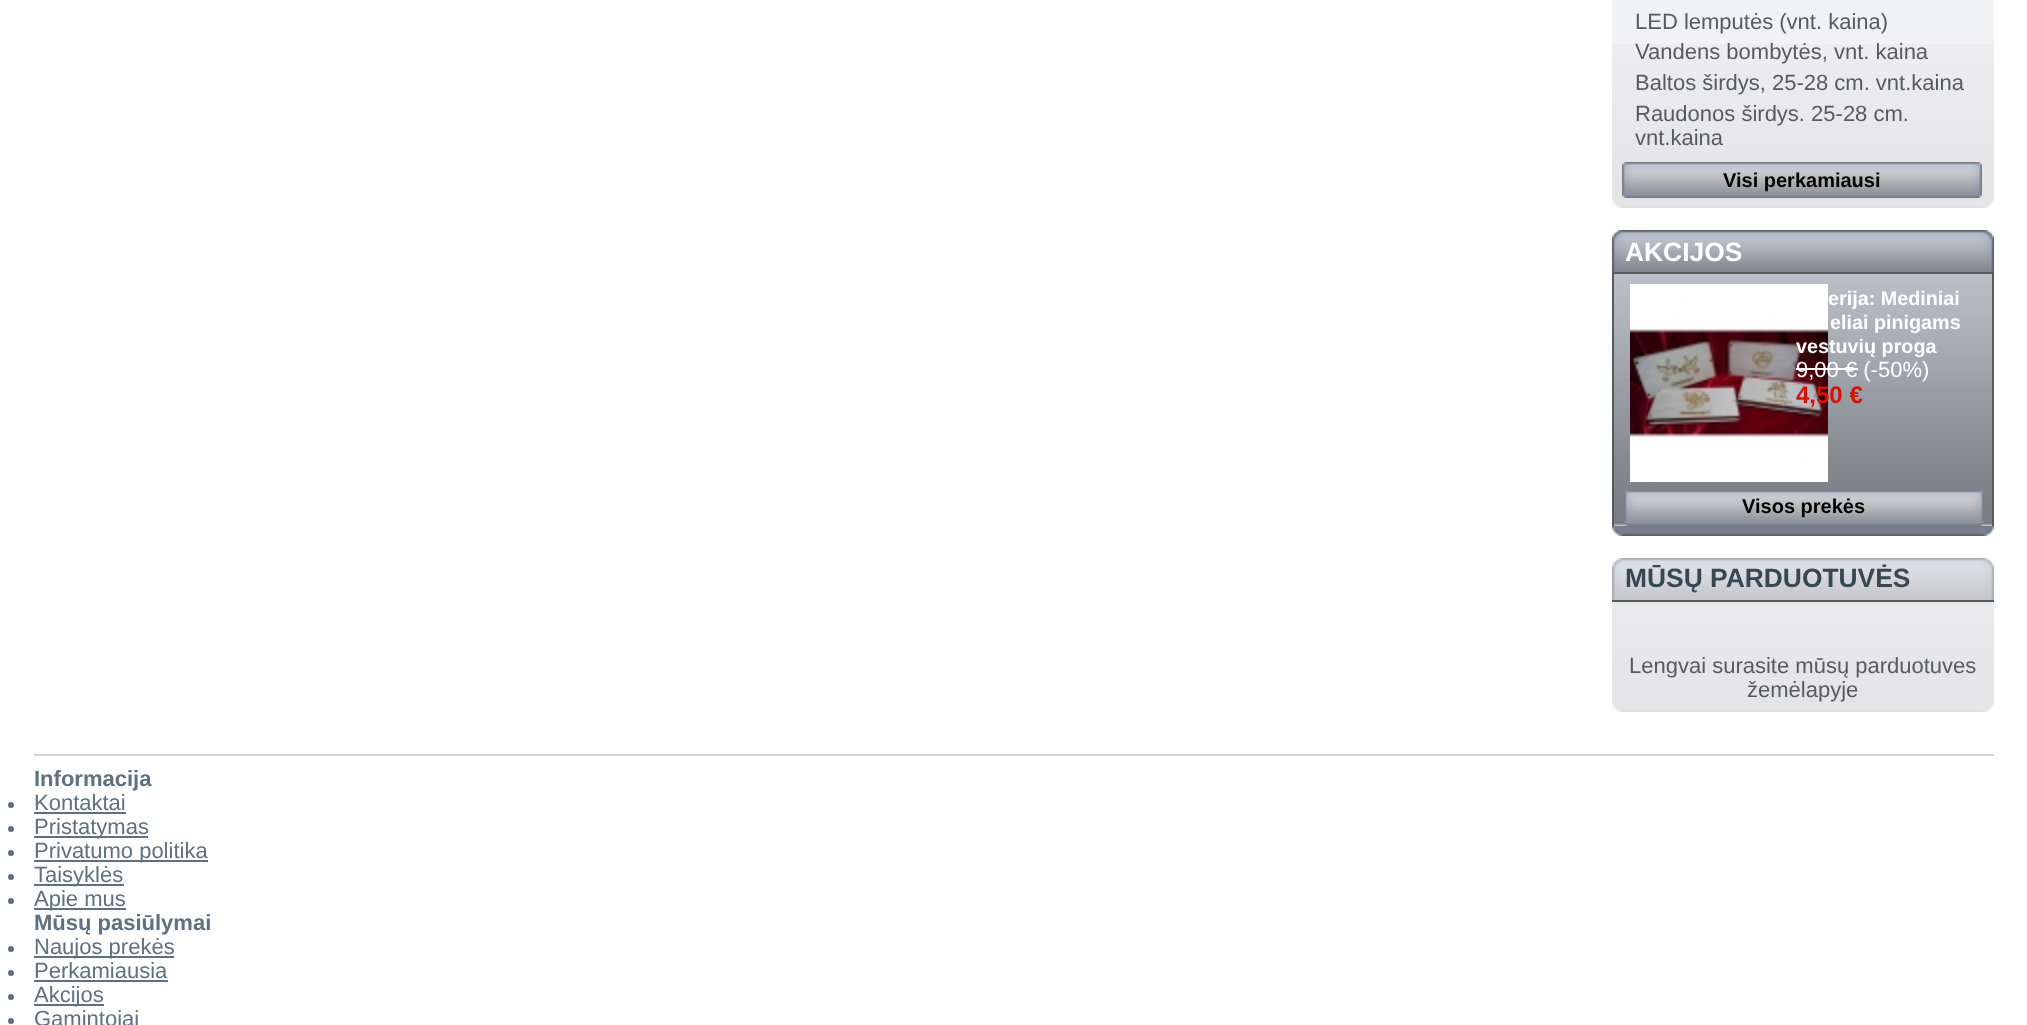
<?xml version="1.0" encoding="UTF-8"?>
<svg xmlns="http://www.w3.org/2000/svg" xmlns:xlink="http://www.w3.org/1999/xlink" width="2027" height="1025">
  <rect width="100%" height="100%" fill="#ffffff" />
  <image x="1612" y="198" width="382" height="10" xlink:href="image1.png" />
  <rect x="1612" width="382" height="44" fill="#f1f2f4" />
  <image x="1612" y="44" width="382" height="154" xlink:href="image2.png" />
  <image x="1622" y="162" width="360" height="36" xlink:href="image3.png" />
  <image x="1612" y="526" width="382" height="10" xlink:href="image4.png" />
  <image x="1612" y="230" width="382" height="42" xlink:href="image5.png" />
  <rect x="1612" y="272" width="382" height="2" fill="#595a5e" />
  <rect x="1614" y="274" width="378" height="252" fill="#bdc2c9" />
  <image x="1614" y="277" width="378" height="248" xlink:href="image6.png" />
  <rect x="1992" y="274" width="2" height="252" fill="#595a5e" />
  <rect x="1612" y="274" width="2" height="252" fill="#595a5e" />
  <image x="1630" y="284" width="198" height="198" xlink:href="image7.png" />
  <rect x="1796" y="368" width="62" height="2" fill="#ffffff" />
  <image x="1624" y="490" width="360" height="36" xlink:href="image8.png" />
  <image x="1612" y="702" width="382" height="10" xlink:href="image1.png" />
  <image x="1612" y="558" width="382" height="42" xlink:href="image9.png" />
  <rect x="1612" y="600" width="382" height="2" fill="#595a5e" />
  <image x="1612" y="602" width="382" height="100" xlink:href="image10.png" />
  <rect x="34" y="754" width="1960" height="2" fill="#d0d3d8" />
  <circle cx="11" cy="805" r="3" fill="#5d717e" />
  <rect x="34" y="812" width="92" height="2" fill="#5d717e" />
  <circle cx="11" cy="829" r="3" fill="#5d717e" />
  <rect x="34" y="836" width="114" height="2" fill="#5d717e" />
  <circle cx="11" cy="853" r="3" fill="#5d717e" />
  <rect x="34" y="860" width="174" height="2" fill="#5d717e" />
  <circle cx="11" cy="877" r="3" fill="#5d717e" />
  <rect x="34" y="884" width="90" height="2" fill="#5d717e" />
  <circle cx="11" cy="901" r="3" fill="#5d717e" />
  <rect x="34" y="908" width="92" height="2" fill="#5d717e" />
  <circle cx="11" cy="949" r="3" fill="#5d717e" />
  <rect x="34" y="956" width="140" height="2" fill="#5d717e" />
  <circle cx="11" cy="973" r="3" fill="#5d717e" />
  <rect x="34" y="980" width="134" height="2" fill="#5d717e" />
  <circle cx="11" cy="997" r="3" fill="#5d717e" />
  <rect x="34" y="1004" width="70" height="2" fill="#5d717e" />
  <circle cx="11" cy="1021" r="3" fill="#5d717e" />
  <text x="1635" y="29" style="font-family: Liberation Sans; font-size: 22px; fill: #595a5e">LED lemputės (vnt. kaina)</text>
  <text x="1635" y="59" style="font-family: Liberation Sans; font-size: 22px; fill: #595a5e">Vandens bombytės, vnt. kaina</text>
  <text x="1635" y="90" style="font-family: Liberation Sans; font-size: 22px; fill: #595a5e">Baltos širdys, 25-28 cm. vnt.kaina</text>
  <text x="1635" y="121" style="font-family: Liberation Sans; font-size: 22px; fill: #595a5e">Raudonos širdys. 25-28 cm.</text>
  <text x="1635" y="145" style="font-family: Liberation Sans; font-size: 22px; fill: #595a5e">vnt.kaina</text>
  <text x="1723" y="187" style="font-family: Liberation Sans; font-size: 20px; font-weight: bold; fill: #000000">Visi perkamiausi</text>
  <text x="1625" y="261" style="font-family: Liberation Sans; font-size: 26.4px; font-weight: bold; fill: #ffffff">AKCIJOS</text>
  <text x="1828" y="305" style="font-family: Liberation Sans; font-size: 19.75px; font-weight: bold; fill: #ffffff">erija: Mediniai</text>
  <text x="1830" y="329" style="font-family: Liberation Sans; font-size: 19.75px; font-weight: bold; fill: #ffffff">eliai pinigams</text>
  <text x="1796" y="353" style="font-family: Liberation Sans; font-size: 19.75px; font-weight: bold; fill: #ffffff">vestuvių proga</text>
  <text x="1796" y="377" style="font-family: Liberation Sans; font-size: 22px; fill: #ffffff">9,00 € (-50%)</text>
  <text x="1796" y="403" style="font-family: Liberation Sans; font-size: 24px; font-weight: bold; fill: #da0f00">4,50 €</text>
  <text x="1742" y="513" style="font-family: Liberation Sans; font-size: 20px; font-weight: bold; fill: #000000">Visos prekės</text>
  <text x="1625" y="587" style="font-family: Liberation Sans; font-size: 26.4px; font-weight: bold; fill: #374853">MŪSŲ PARDUOTUVĖS</text>
  <text x="1629" y="673" style="font-family: Liberation Sans; font-size: 22px; fill: #595a5e">Lengvai surasite mūsų parduotuves</text>
  <text x="1747" y="697" style="font-family: Liberation Sans; font-size: 22px; fill: #595a5e">žemėlapyje</text>
  <text x="34" y="786" style="font-family: Liberation Sans; font-size: 22px; font-weight: bold; fill: #5d717e">Informacija</text>
  <text x="34" y="810" style="font-family: Liberation Sans; font-size: 22px; fill: #5d717e">Kontaktai</text>
  <text x="34" y="834" style="font-family: Liberation Sans; font-size: 22px; fill: #5d717e">Pristatymas</text>
  <text x="34" y="858" style="font-family: Liberation Sans; font-size: 22px; fill: #5d717e">Privatumo politika</text>
  <text x="34" y="882" style="font-family: Liberation Sans; font-size: 22px; fill: #5d717e">Taisyklės</text>
  <text x="34" y="906" style="font-family: Liberation Sans; font-size: 22px; fill: #5d717e">Apie mus</text>
  <text x="34" y="930" style="font-family: Liberation Sans; font-size: 22px; font-weight: bold; fill: #5d717e">Mūsų pasiūlymai</text>
  <text x="34" y="954" style="font-family: Liberation Sans; font-size: 22px; fill: #5d717e">Naujos prekės</text>
  <text x="34" y="978" style="font-family: Liberation Sans; font-size: 22px; fill: #5d717e">Perkamiausia</text>
  <text x="34" y="1002" style="font-family: Liberation Sans; font-size: 22px; fill: #5d717e">Akcijos</text>
  <text x="34" y="1026" style="font-family: Liberation Sans; font-size: 22px; fill: #5d717e">Gamintojai</text>
</svg>
